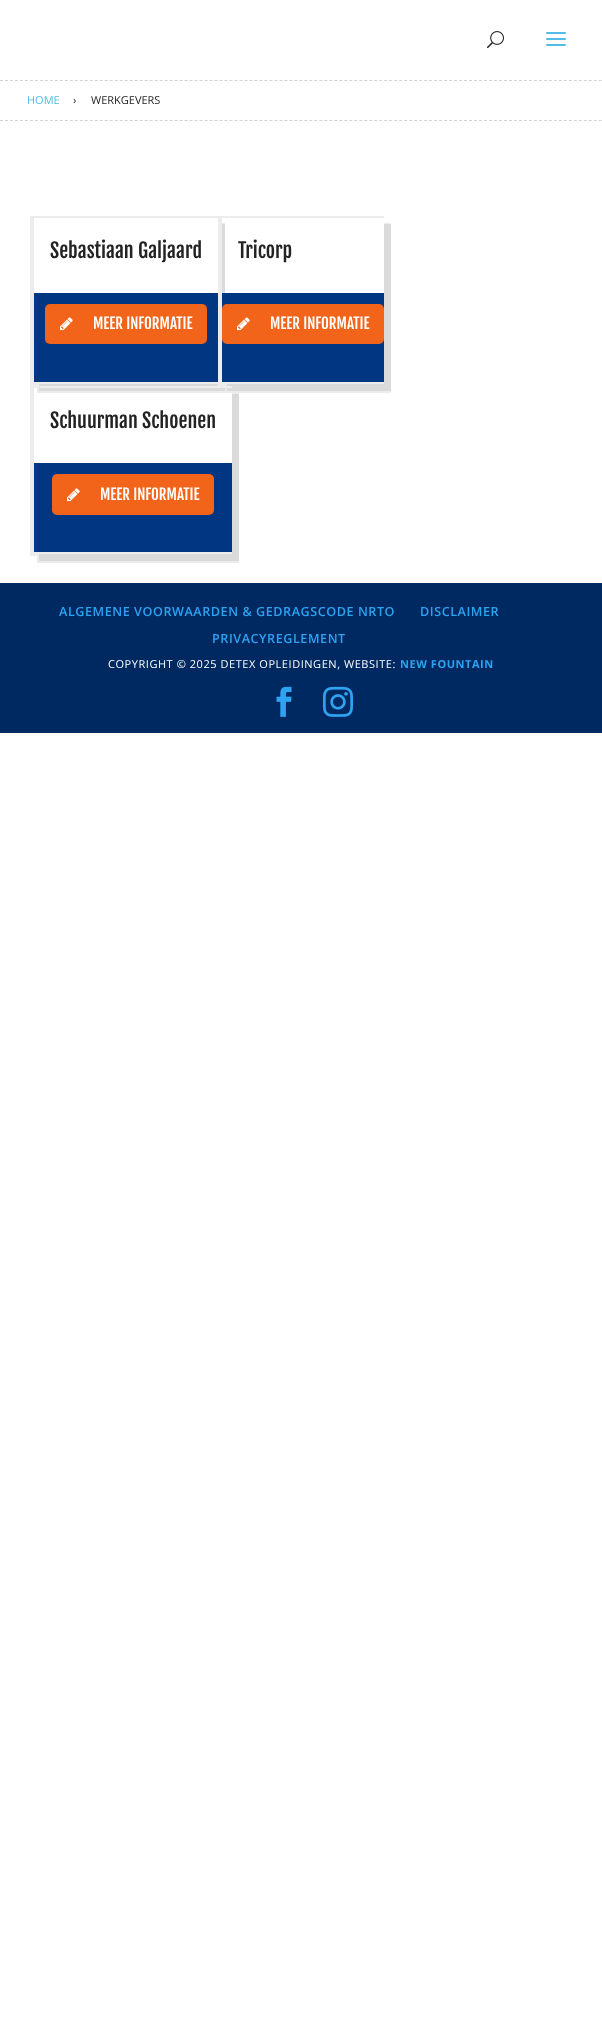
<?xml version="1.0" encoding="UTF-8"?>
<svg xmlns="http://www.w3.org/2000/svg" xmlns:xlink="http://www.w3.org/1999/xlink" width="602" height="2042">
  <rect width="100%" height="100%" fill="#ffffff" />
  <image x="487" y="31" width="17" height="18" xlink:href="image1.png" />
  <image x="546" y="32" width="20" height="14" xlink:href="image2.png" />
  <path d="M -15 80.5 h 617" fill="none" stroke="#d0d6cf" stroke-dasharray="3 1.99" />
  <path d="M -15 120.5 h 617" fill="none" stroke="#d0d6cf" stroke-dasharray="3 1.99" />
  <path d="M 37 386 v 7 h 188 v -170 h -7 v 163 z" fill="#ececec" />
  <rect x="30" y="216" width="354" height="1" fill="#ececec" />
  <rect x="30" y="384" width="9" height="2" fill="#ececec" />
  <rect x="30" y="216" width="2" height="170" fill="#ececec" />
  <path d="M 39 384 v 7 h 186 v -167 h -7 v 160 z" fill="#dadada" />
  <rect x="32" y="217" width="186" height="1" fill="#ececec" />
  <rect x="32" y="382" width="186" height="2" fill="#ececec" />
  <rect x="32" y="217" width="2" height="167" fill="#ececec" />
  <rect x="34" y="293" width="184" height="89" fill="#013683" />
  <rect x="45" y="304" width="162" height="40" rx="5" fill="#f26419" />
  <image x="60" y="317" width="13" height="14" xlink:href="image3.png" />
  <path d="M 225 386 v 7 h 166 v -170 h -7 v 163 z" fill="#ececec" />
  <rect x="218" y="384" width="9" height="2" fill="#ececec" />
  <rect x="218" y="216" width="2" height="170" fill="#ececec" />
  <path d="M 227 384 v 7 h 164 v -167 h -7 v 160 z" fill="#dadada" />
  <rect x="220" y="217" width="164" height="1" fill="#ececec" />
  <rect x="220" y="382" width="164" height="2" fill="#ececec" />
  <rect x="220" y="217" width="2" height="167" fill="#ececec" />
  <rect x="222" y="293" width="162" height="89" fill="#013683" />
  <rect x="222" y="304" width="162" height="40" rx="5" fill="#f26419" />
  <image x="237" y="317" width="13" height="14" xlink:href="image3.png" />
  <path d="M 37 556 v 7 h 202 v -170 h -7 v 163 z" fill="#ececec" />
  <rect x="30" y="386" width="202" height="1" fill="#ececec" />
  <rect x="30" y="554" width="9" height="2" fill="#ececec" />
  <rect x="30" y="386" width="2" height="170" fill="#ececec" />
  <path d="M 39 554 v 7 h 200 v -167 h -7 v 160 z" fill="#dadada" />
  <rect x="32" y="387" width="200" height="1" fill="#ececec" />
  <rect x="32" y="552" width="200" height="2" fill="#ececec" />
  <rect x="32" y="387" width="2" height="167" fill="#ececec" />
  <rect x="34" y="463" width="198" height="89" fill="#013683" />
  <rect x="52" y="474" width="162" height="41" rx="5" fill="#f26419" />
  <image x="67" y="488" width="13" height="14" xlink:href="image3.png" />
  <rect y="583" width="602" height="150" fill="#002961" />
  <image x="276" y="686" width="16" height="31" xlink:href="image4.png" />
  <image x="323" y="686" width="30" height="31" xlink:href="image5.png" />
  <text x="27" y="104" style="font-family: Open Sans; font-size: 11px; fill: #52bbe6">HOME</text>
  <text x="73" y="104" style="font-family: Open Sans; font-size: 11px; fill: #232323">›</text>
  <text x="91" y="104" style="font-family: Open Sans; font-size: 11px; fill: #232323">WERKGEVERS</text>
  <text x="50" y="258" style="font-family: Fjalla One; font-size: 20px; fill: #232323">Sebastiaan Galjaard</text>
  <text x="93" y="329" style="font-family: Fjalla One; font-size: 15px; fill: #ffffff">MEER INFORMATIE</text>
  <text x="238" y="258" style="font-family: Fjalla One; font-size: 20px; fill: #232323">Tricorp</text>
  <text x="270" y="329" style="font-family: Fjalla One; font-size: 15px; fill: #ffffff">MEER INFORMATIE</text>
  <text x="50" y="428" style="font-family: Fjalla One; font-size: 20px; fill: #232323">Schuurman Schoenen</text>
  <text x="100" y="500" style="font-family: Fjalla One; font-size: 15px; fill: #ffffff">MEER INFORMATIE</text>
  <text x="59" y="616" style="font-family: Open Sans; font-size: 12.6px; font-weight: 600; letter-spacing: 0.55px; fill: #2ea3f2">ALGEMENE VOORWAARDEN &amp; GEDRAGSCODE NRTO</text>
  <text x="420" y="616" style="font-family: Open Sans; font-size: 12.6px; font-weight: 600; letter-spacing: 0.55px; fill: #2ea3f2">DISCLAIMER</text>
  <text x="212" y="643" style="font-family: Open Sans; font-size: 12.6px; font-weight: 600; letter-spacing: 0.55px; fill: #2ea3f2">PRIVACYREGLEMENT</text>
  <text x="108" y="668" style="font-family: Open Sans; font-size: 11px; letter-spacing: 0.55px; fill: #ffffff">COPYRIGHT © 2025 DETEX OPLEIDINGEN, WEBSITE:</text>
  <text x="400" y="668" style="font-family: Open Sans; font-size: 11px; font-weight: bold; letter-spacing: 0.55px; fill: #2ea3f2">NEW FOUNTAIN</text>
</svg>
